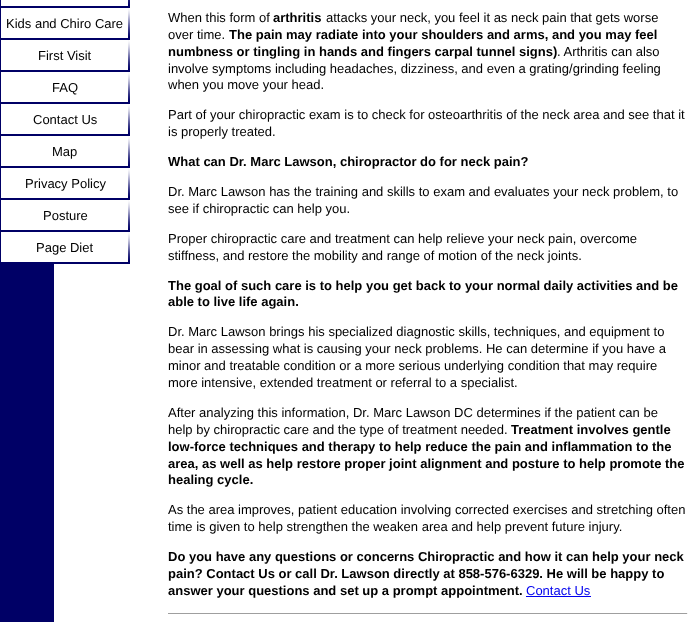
<?xml version="1.0" encoding="UTF-8"?>
<svg xmlns="http://www.w3.org/2000/svg" xmlns:xlink="http://www.w3.org/1999/xlink" width="697" height="622">
  <rect width="100%" height="100%" fill="#ffffff" />
  <rect width="54" height="622" fill="#000066" />
  <image x="1" y="0" width="129" height="8" xlink:href="image1.png" />
  <image x="1" y="8" width="129" height="32" xlink:href="image2.png" />
  <image x="1" y="40" width="129" height="32" xlink:href="image2.png" />
  <image x="1" y="72" width="129" height="32" xlink:href="image2.png" />
  <image x="1" y="104" width="129" height="32" xlink:href="image2.png" />
  <image x="1" y="136" width="129" height="32" xlink:href="image2.png" />
  <image x="1" y="168" width="129" height="32" xlink:href="image2.png" />
  <image x="1" y="200" width="129" height="32" xlink:href="image2.png" />
  <image x="1" y="232" width="129" height="32" xlink:href="image2.png" />
  <rect x="526" y="596" width="65" height="1" fill="#0000ee" />
  <rect x="168" y="613" width="520" height="1" fill="#9f9f9f" />
  <rect x="687" y="613" width="1" height="1" fill="#eeeeee" />
  <text x="6" y="28" style="font-family: Liberation Sans; font-size: 13px; fill: #000000">Kids and Chiro Care</text>
  <text x="38" y="60" style="font-family: Liberation Sans; font-size: 13px; fill: #000000">First Visit</text>
  <text x="52" y="92" style="font-family: Liberation Sans; font-size: 13px; fill: #000000">FAQ</text>
  <text x="33" y="124" style="font-family: Liberation Sans; font-size: 13px; fill: #000000">Contact Us</text>
  <text x="52" y="156" style="font-family: Liberation Sans; font-size: 13px; fill: #000000">Map</text>
  <text x="25" y="188" style="font-family: Liberation Sans; font-size: 13px; fill: #000000">Privacy Policy</text>
  <text x="43" y="220" style="font-family: Liberation Sans; font-size: 13px; fill: #000000">Posture</text>
  <text x="36" y="252" style="font-family: Liberation Sans; font-size: 13px; fill: #000000">Page Diet</text>
  <text x="168" y="22" style="font-family: Liberation Sans; font-size: 13px; fill: #000000">When this form of</text>
  <text x="273" y="22" style="font-family: Liberation Sans; font-size: 13px; font-weight: bold; fill: #000000">arthritis</text>
  <text x="326" y="22" style="font-family: Liberation Sans; font-size: 13px; fill: #000000">attacks your neck, you feel it as neck pain that gets worse</text>
  <text x="168" y="39" style="font-family: Liberation Sans; font-size: 13px; fill: #000000">over time.</text>
  <text x="229" y="39" style="font-family: Liberation Sans; font-size: 13px; font-weight: bold; fill: #000000">The pain may radiate into your shoulders and arms, and you may feel</text>
  <text x="168" y="56" style="font-family: Liberation Sans; font-size: 13px; font-weight: bold; fill: #000000">numbness or tingling in hands and fingers carpal tunnel signs)</text>
  <text x="557" y="56" style="font-family: Liberation Sans; font-size: 13px; fill: #000000">. Arthritis can also</text>
  <text x="168" y="73" style="font-family: Liberation Sans; font-size: 13px; fill: #000000">involve symptoms including headaches, dizziness, and even a grating/grinding feeling</text>
  <text x="168" y="89" style="font-family: Liberation Sans; font-size: 13px; fill: #000000">when you move your head.</text>
  <text x="168" y="119" style="font-family: Liberation Sans; font-size: 13px; fill: #000000">Part of your chiropractic exam is to check for osteoarthritis of the neck area and see that it</text>
  <text x="168" y="136" style="font-family: Liberation Sans; font-size: 13px; fill: #000000">is properly treated.</text>
  <text x="168" y="166" style="font-family: Liberation Sans; font-size: 13px; font-weight: bold; fill: #000000">What can Dr. Marc Lawson, chiropractor do for neck pain?</text>
  <text x="168" y="196" style="font-family: Liberation Sans; font-size: 13px; fill: #000000">Dr. Marc Lawson has the training and skills to exam and evaluates your neck problem, to</text>
  <text x="168" y="213" style="font-family: Liberation Sans; font-size: 13px; fill: #000000">see if chiropractic can help you.</text>
  <text x="168" y="243" style="font-family: Liberation Sans; font-size: 13px; fill: #000000">Proper chiropractic care and treatment can help relieve your neck pain, overcome</text>
  <text x="168" y="260" style="font-family: Liberation Sans; font-size: 13px; fill: #000000">stiffness, and restore the mobility and range of motion of the neck joints.</text>
  <text x="168" y="290" style="font-family: Liberation Sans; font-size: 13px; font-weight: bold; fill: #000000">The goal of such care is to help you get back to your normal daily activities and be</text>
  <text x="168" y="306" style="font-family: Liberation Sans; font-size: 13px; font-weight: bold; fill: #000000">able to live life again.</text>
  <text x="168" y="336" style="font-family: Liberation Sans; font-size: 13px; fill: #000000">Dr. Marc Lawson brings his specialized diagnostic skills, techniques, and equipment to</text>
  <text x="168" y="353" style="font-family: Liberation Sans; font-size: 13px; fill: #000000">bear in assessing what is causing your neck problems. He can determine if you have a</text>
  <text x="168" y="370" style="font-family: Liberation Sans; font-size: 13px; fill: #000000">minor and treatable condition or a more serious underlying condition that may require</text>
  <text x="168" y="387" style="font-family: Liberation Sans; font-size: 13px; fill: #000000">more intensive, extended treatment or referral to a specialist.</text>
  <text x="168" y="417" style="font-family: Liberation Sans; font-size: 13px; fill: #000000">After analyzing this information, Dr. Marc Lawson DC determines if the patient can be</text>
  <text x="168" y="434" style="font-family: Liberation Sans; font-size: 13px; fill: #000000">help by chiropractic care and the type of treatment needed.</text>
  <text x="511" y="434" style="font-family: Liberation Sans; font-size: 13px; font-weight: bold; fill: #000000">Treatment involves gentle</text>
  <text x="168" y="451" style="font-family: Liberation Sans; font-size: 13px; font-weight: bold; fill: #000000">low-force techniques and therapy to help reduce the pain and inflammation to the</text>
  <text x="168" y="468" style="font-family: Liberation Sans; font-size: 13px; font-weight: bold; fill: #000000">area, as well as help restore proper joint alignment and posture to help promote the</text>
  <text x="168" y="484" style="font-family: Liberation Sans; font-size: 13px; font-weight: bold; fill: #000000">healing cycle.</text>
  <text x="168" y="514" style="font-family: Liberation Sans; font-size: 13px; fill: #000000">As the area improves, patient education involving corrected exercises and stretching often</text>
  <text x="168" y="531" style="font-family: Liberation Sans; font-size: 13px; fill: #000000">time is given to help strengthen the weaken area and help prevent future injury.</text>
  <text x="168" y="561" style="font-family: Liberation Sans; font-size: 13px; font-weight: bold; fill: #000000">Do you have any questions or concerns Chiropractic and how it can help your neck</text>
  <text x="168" y="578" style="font-family: Liberation Sans; font-size: 13px; font-weight: bold; fill: #000000">pain? Contact Us or call Dr. Lawson directly at 858-576-6329. He will be happy to</text>
  <text x="168" y="595" style="font-family: Liberation Sans; font-size: 13px; font-weight: bold; fill: #000000">answer your questions and set up a prompt appointment.</text>
  <text x="526" y="595" style="font-family: Liberation Sans; font-size: 13px; fill: #0000ee">Contact Us</text>
</svg>
